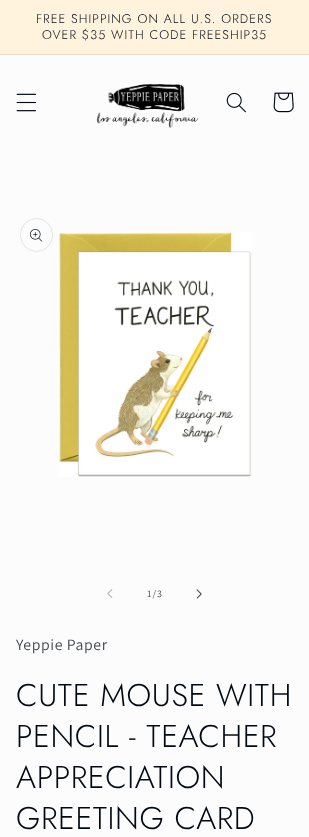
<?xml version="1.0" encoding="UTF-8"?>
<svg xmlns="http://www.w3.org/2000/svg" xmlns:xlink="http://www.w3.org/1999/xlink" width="309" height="837">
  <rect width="100%" height="100%" fill="#fcfcfc" />
  <rect width="309" height="54" fill="#fff3de" />
  <rect y="54" width="309" height="1" fill="#ebe0ce" />
  <image x="16" y="93" width="20" height="19" xlink:href="image1.png" />
  <image x="96" y="84" width="103" height="44" xlink:href="image2.png" />
  <image x="226" y="92" width="20" height="21" xlink:href="image3.png" />
  <image x="273" y="92" width="21" height="21" xlink:href="image4.png" />
  <rect x="20.5" y="218.5" width="32" height="33" rx="16" fill="none" stroke="#e3e4e5" />
  <image x="30" y="229" width="13" height="13" xlink:href="image5.png" />
  <image x="59" y="232" width="193" height="245" xlink:href="image6.png" />
  <image x="107" y="589" width="6" height="9" xlink:href="image7.png" />
  <image x="196" y="589" width="6" height="10" xlink:href="image8.png" />
  <text x="36" y="23" style="font-family: Jost; font-size: 12.6px; font-weight: 300; letter-spacing: 1.05px; fill: #020912">FREE SHIPPING ON ALL U.S. ORDERS</text>
  <text x="42" y="39" style="font-family: Jost; font-size: 12.6px; font-weight: 300; letter-spacing: 1.05px; fill: #020912">OVER $35 WITH CODE FREESHIP35</text>
  <text x="147" y="597" style="font-family: Assistant; font-size: 10px; letter-spacing: 1px; fill: #41464d">1/3</text>
  <text x="16" y="650" style="font-family: Assistant; font-size: 15.75px; letter-spacing: 0.6px; fill: #41464d">Yeppie Paper</text>
  <text x="16" y="706" style="font-family: Jost; font-size: 31.5px; font-weight: 300; letter-spacing: 0.6px; fill: #020912">CUTE MOUSE WITH</text>
  <text x="16" y="747" style="font-family: Jost; font-size: 31.5px; font-weight: 300; letter-spacing: 0.6px; fill: #020912">PENCIL - TEACHER</text>
  <text x="16" y="788" style="font-family: Jost; font-size: 31.5px; font-weight: 300; letter-spacing: 0.6px; fill: #020912">APPRECIATION</text>
  <text x="16" y="829" style="font-family: Jost; font-size: 31.5px; font-weight: 300; letter-spacing: 0.6px; fill: #020912">GREETING CARD</text>
</svg>
